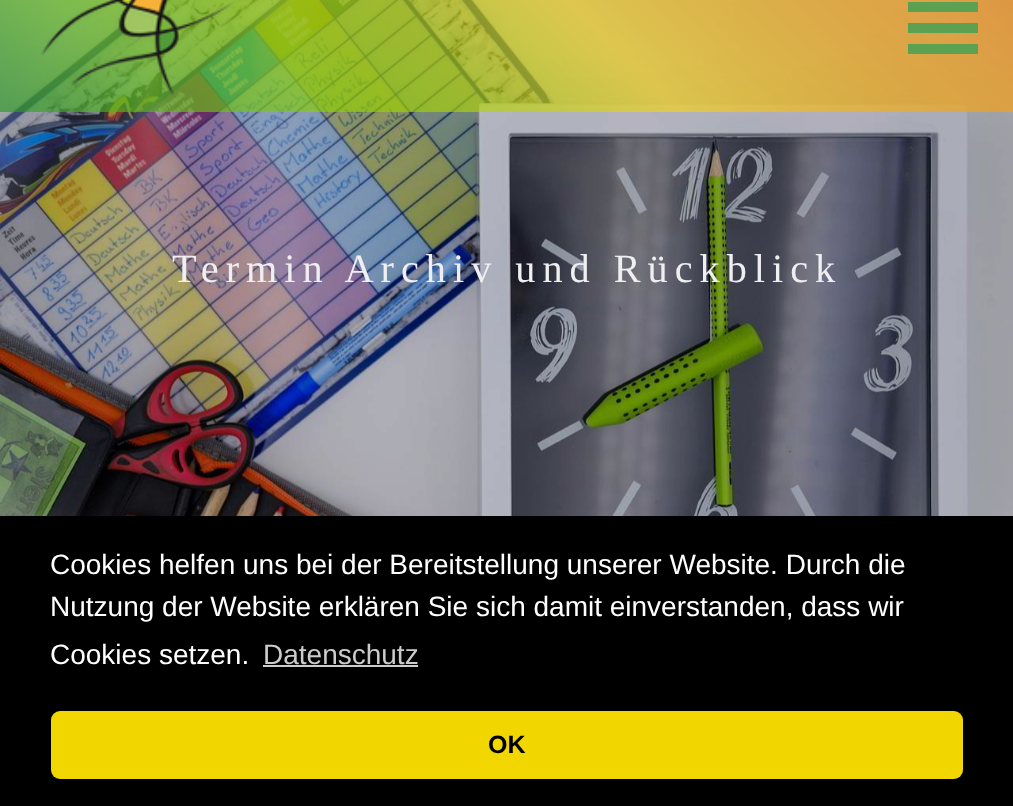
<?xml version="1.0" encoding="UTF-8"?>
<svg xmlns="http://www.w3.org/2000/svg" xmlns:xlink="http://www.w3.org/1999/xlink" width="1013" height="806">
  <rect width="100%" height="100%" fill="#ffffff" />
  <image x="0" y="0" width="1013" height="516" xlink:href="image2.png" />
  <image x="40" y="0" width="195" height="95" xlink:href="image1.png" />
  <rect x="908" y="2" width="70" height="10" fill="#5ca152" />
  <rect x="908" y="23" width="70" height="10" fill="#5ca152" />
  <rect x="908" y="44" width="70" height="10" fill="#5ca152" />
  <rect y="516" width="1013" height="290" fill="#000000" />
  <rect x="263" y="665" width="155" height="2" fill="#cccccc" />
  <rect x="51" y="711" width="912" height="68" rx="9" fill="#f1d600" />
  <text x="172" y="282" style="font-family: Liberation Serif; font-size: 40.25px; letter-spacing: 7px; fill: #efeff1">Termin Archiv und Rückblick</text>
  <text x="50" y="574" style="font-family: Liberation Sans; font-size: 28px; fill: #ffffff">Cookies helfen uns bei der Bereitstellung unserer Website. Durch die</text>
  <text x="50" y="616" style="font-family: Liberation Sans; font-size: 28px; fill: #ffffff">Nutzung der Website erklären Sie sich damit einverstanden, dass wir</text>
  <text x="50" y="664" style="font-family: Liberation Sans; font-size: 28px; fill: #ffffff">Cookies setzen.</text>
  <text x="263" y="664" style="font-family: Liberation Sans; font-size: 28px; fill: #cccccc">Datenschutz</text>
  <text x="488" y="753" style="font-family: Liberation Sans; font-size: 25px; font-weight: bold; fill: #000000">OK</text>
</svg>
